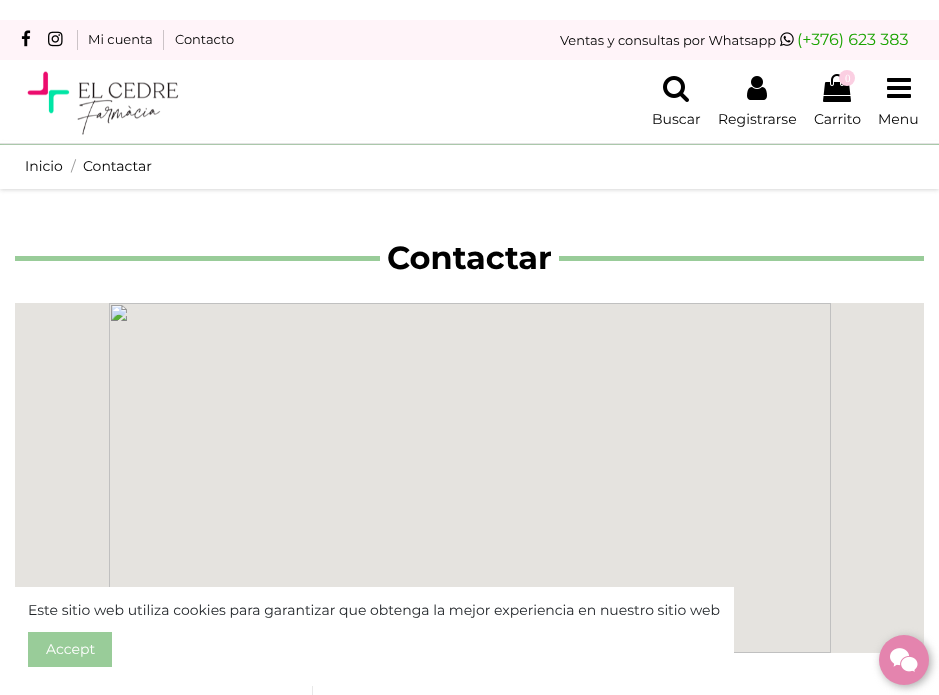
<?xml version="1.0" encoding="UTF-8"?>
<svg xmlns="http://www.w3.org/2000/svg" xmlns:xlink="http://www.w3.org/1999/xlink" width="939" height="695">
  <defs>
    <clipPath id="clip1"><path d="M 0 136 h 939 v 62 h -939 z m 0 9 h 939 v 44 h -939 z" clip-rule="evenodd" /></clipPath>
  </defs>
  <rect width="100%" height="100%" fill="#ffffff" />
  <rect y="144" width="939" height="1" fill="#99cc99" />
  <g clip-path="url(#clip1)">
    <rect y="145" width="939" height="44" fill="#c4c4c4" filter="blur(2.5px)" />
  </g>
  <rect y="141" width="939" height="2" fill="#ffffff" />
  <rect y="20" width="939" height="40" fill="#fff4f9" />
  <image x="21" y="30" width="10" height="17" xlink:href="image1.png" />
  <image x="48" y="31" width="15" height="16" xlink:href="image2.png" />
  <rect x="77" y="30" width="1" height="20" fill="#ccc3c7" />
  <rect x="163" y="30" width="1" height="20" fill="#ccc3c7" />
  <image x="780" y="32" width="14" height="15" xlink:href="image3.png" />
  <rect y="143" width="939" height="1" fill="#e3e3e3" />
  <image x="27" y="71" width="152" height="64" xlink:href="image4.png" />
  <image x="663" y="76" width="26" height="26" xlink:href="image5.png" />
  <image x="747" y="76" width="20" height="24" xlink:href="image6.png" />
  <image x="823" y="74" width="28" height="28" xlink:href="image7.png" />
  <circle cx="847" cy="78" r="8" fill="#fbcfe2" />
  <image x="887" y="78" width="24" height="20" xlink:href="image8.png" />
  <rect x="15" y="256" width="365" height="5" fill="#99cc99" />
  <rect x="559" y="256" width="365" height="5" fill="#99cc99" />
  <image x="15" y="303" width="909" height="350" xlink:href="image9.png" />
  <rect x="312" y="686" width="1" height="9" fill="#e8e8e8" />
  <rect x="15" y="587" width="719" height="66" fill="#ffffff" />
  <rect x="28" y="632" width="84" height="35" fill="#99cc99" />
  <rect x="881" y="637" width="50" height="50" rx="25" fill="#aaaaaa" filter="blur(4px)" />
  <circle cx="904" cy="660" r="25" fill="#e484ae" />
  <image x="890" y="648" width="28" height="24" xlink:href="image10.png" />
  <text x="88" y="44" style="font-family: Montserrat; font-size: 13px; fill: #000000">Mi cuenta</text>
  <text x="175" y="44" style="font-family: Montserrat; font-size: 13px; fill: #000000">Contacto</text>
  <text x="560" y="45" style="font-family: Montserrat; font-size: 13px; fill: #000000">Ventas y consultas por Whatsapp</text>
  <text x="797" y="45" style="font-family: Montserrat; font-size: 16px; fill: #1aa300">(+376) 623 383</text>
  <text x="652" y="124" style="font-family: Montserrat; font-size: 14px; fill: #000000">Buscar</text>
  <text x="718" y="124" style="font-family: Montserrat; font-size: 14px; fill: #000000">Registrarse</text>
  <text x="845" y="82" style="font-family: Liberation Serif; font-size: 11px; fill: #ffffff">0</text>
  <text x="814" y="124" style="font-family: Montserrat; font-size: 14px; fill: #000000">Carrito</text>
  <text x="878" y="124" style="font-family: Montserrat; font-size: 14px; fill: #000000">Menu</text>
  <text x="25" y="171" style="font-family: Montserrat; font-size: 14px; fill: #000000">Inicio</text>
  <text x="71" y="171" style="font-family: Montserrat; font-size: 14px; fill: #999999">/</text>
  <text x="83" y="171" style="font-family: Montserrat; font-size: 14px; fill: #000000">Contactar</text>
  <text x="387" y="269" style="font-family: Montserrat; font-size: 32px; font-weight: bold; fill: #000000">Contactar</text>
  <text x="28" y="615" style="font-family: Montserrat; font-size: 14px; fill: #212529">Este sitio web utiliza cookies para garantizar que obtenga la mejor experiencia en nuestro sitio web</text>
  <text x="46" y="654" style="font-family: Montserrat; font-size: 14px; fill: #ffffff">Accept</text>
</svg>
